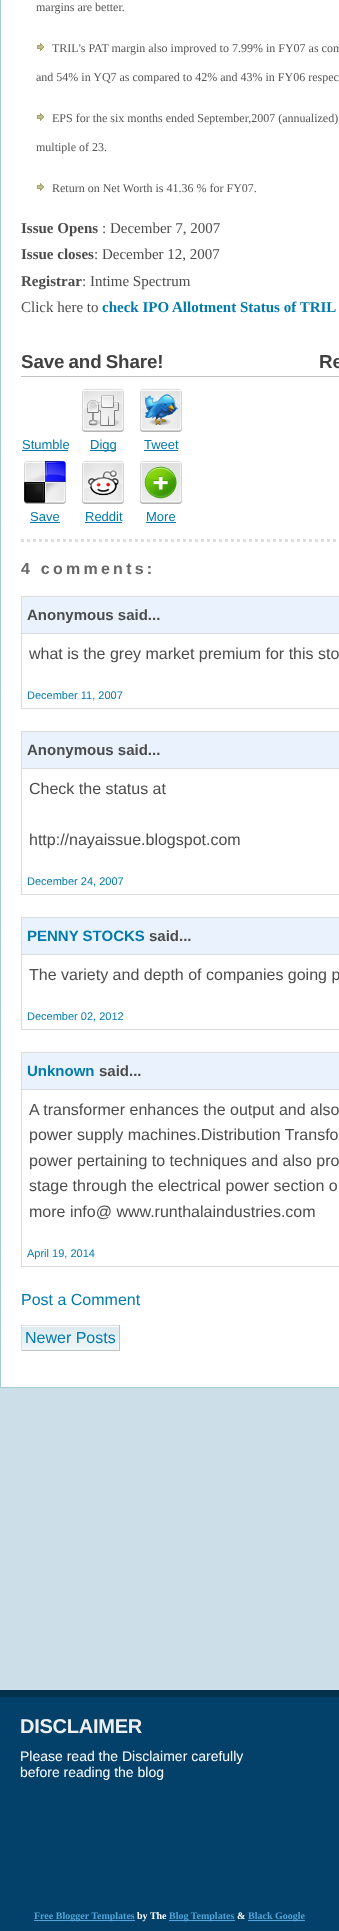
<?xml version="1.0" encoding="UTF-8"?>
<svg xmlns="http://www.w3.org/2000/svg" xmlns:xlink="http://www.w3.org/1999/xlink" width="339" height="1931">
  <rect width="100%" height="100%" fill="#ccdee8" />
  <rect x="0.5" y="-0.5" width="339" height="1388" fill="#ffffff" stroke="#a2ccdb" />
  <path d="M 21 540.5 h 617" fill="none" stroke="#dddddd" stroke-width="3" stroke-dasharray="3 3" />
  <image x="37" y="43" width="7" height="8" xlink:href="image1.png" />
  <image x="37" y="113" width="7" height="8" xlink:href="image1.png" />
  <image x="37" y="183" width="7" height="8" xlink:href="image1.png" />
  <rect x="22" y="450" width="46" height="1" fill="#027aac" />
  <image x="82" y="389" width="42" height="43" xlink:href="image2.png" />
  <rect x="90" y="450" width="26" height="1" fill="#027aac" />
  <image x="140" y="389" width="42" height="43" xlink:href="image3.png" />
  <rect x="144" y="450" width="34" height="1" fill="#027aac" />
  <image x="24" y="461" width="42" height="43" xlink:href="image4.png" />
  <rect x="30" y="522" width="30" height="1" fill="#027aac" />
  <image x="82" y="461" width="42" height="43" xlink:href="image5.png" />
  <rect x="85" y="522" width="37" height="1" fill="#027aac" />
  <image x="140" y="461" width="42" height="43" xlink:href="image6.png" />
  <rect x="146" y="522" width="30" height="1" fill="#027aac" />
  <rect x="21" y="376" width="318" height="1" fill="#c2c2c2" />
  <rect x="21.5" y="596.5" width="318" height="37" fill="#eaf3fd" stroke="#dcdcdc" />
  <rect x="21" y="634" width="1" height="51" fill="#dcdcdc" />
  <rect x="21" y="708" width="318" height="1" fill="#dcdcdc" />
  <rect x="21" y="683" width="1" height="26" fill="#dcdcdc" />
  <rect x="21.5" y="731.5" width="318" height="37" fill="#eaf3fd" stroke="#dcdcdc" />
  <rect x="21" y="769" width="1" height="102" fill="#dcdcdc" />
  <rect x="21" y="894" width="318" height="1" fill="#dcdcdc" />
  <rect x="21" y="869" width="1" height="26" fill="#dcdcdc" />
  <rect x="21.5" y="917.5" width="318" height="37" fill="#eaf3fd" stroke="#dcdcdc" />
  <rect x="21" y="955" width="1" height="51" fill="#dcdcdc" />
  <rect x="21" y="1029" width="318" height="1" fill="#dcdcdc" />
  <rect x="21" y="1004" width="1" height="26" fill="#dcdcdc" />
  <rect x="21.5" y="1052.5" width="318" height="37" fill="#eaf3fd" stroke="#dcdcdc" />
  <rect x="21" y="1090" width="1" height="153" fill="#dcdcdc" />
  <rect x="21" y="1266" width="318" height="1" fill="#dcdcdc" />
  <rect x="21" y="1241" width="1" height="26" fill="#dcdcdc" />
  <image x="22" y="1327" width="97" height="23" xlink:href="image7.png" />
  <rect x="21" y="1325" width="99" height="1" fill="#dddddd" />
  <rect x="119" y="1325" width="1" height="26" fill="#c2c2c2" />
  <rect x="21" y="1350" width="99" height="1" fill="#c2c2c2" />
  <rect x="21" y="1325" width="1" height="26" fill="#dddddd" />
  <rect y="1697" width="339" height="234" fill="#03416a" />
  <rect y="1690" width="339" height="7" fill="#02304d" />
  <rect x="34" y="1920" width="101" height="1" fill="#52a3d7" />
  <rect x="169" y="1920" width="66" height="1" fill="#52a3d7" />
  <rect x="248" y="1920" width="57" height="1" fill="#52a3d7" />
  <text x="36" y="11" style="font-family: Liberation Serif; font-size: 12px; fill: #555555">margins are better.</text>
  <text x="52" y="52" style="font-family: Liberation Serif; font-size: 12px; fill: #555555">TRIL's PAT margin also improved to 7.99% in FY07 as com</text>
  <text x="36" y="81" style="font-family: Liberation Serif; font-size: 12px; fill: #555555">and 54% in YQ7 as compared to 42% and 43% in FY06 respec</text>
  <text x="52" y="122" style="font-family: Liberation Serif; font-size: 12px; fill: #555555">EPS for the six months ended September,2007 (annualized)</text>
  <text x="36" y="151" style="font-family: Liberation Serif; font-size: 12px; fill: #555555">multiple of 23.</text>
  <text x="52" y="192" style="font-family: Liberation Serif; font-size: 12px; fill: #555555">Return on Net Worth is 41.36 % for FY07.</text>
  <text x="21" y="233" style="font-family: Liberation Serif; font-size: 15px; font-weight: bold; fill: #4c4c4c">Issue Opens</text>
  <text x="102" y="233" style="font-family: Liberation Serif; font-size: 15px; fill: #4c4c4c">: December 7, 2007</text>
  <text x="21" y="259" style="font-family: Liberation Serif; font-size: 15px; font-weight: bold; fill: #4c4c4c">Issue closes</text>
  <text x="94" y="259" style="font-family: Liberation Serif; font-size: 15px; fill: #4c4c4c">: December 12, 2007</text>
  <text x="21" y="286" style="font-family: Liberation Serif; font-size: 15px; font-weight: bold; fill: #4c4c4c">Registrar</text>
  <text x="82" y="286" style="font-family: Liberation Serif; font-size: 15px; fill: #4c4c4c">: Intime Spectrum</text>
  <text x="21" y="312" style="font-family: Liberation Serif; font-size: 15px; fill: #4c4c4c">Click here to</text>
  <text x="102" y="312" style="font-family: Liberation Serif; font-size: 15px; font-weight: bold; fill: #027aac">check IPO Allotment Status of TRIL</text>
  <text x="21" y="368" word-spacing="-1" style="font-family: Liberation Sans; font-size: 18.75px; font-weight: bold; letter-spacing: -0.1px; fill: #414141">Save and Share!</text>
  <text x="22" y="449" style="font-family: Liberation Sans; font-size: 13px; fill: #027aac">Stumble</text>
  <text x="90" y="449" style="font-family: Liberation Sans; font-size: 13px; fill: #027aac">Digg</text>
  <text x="144" y="449" style="font-family: Liberation Sans; font-size: 13px; fill: #027aac">Tweet</text>
  <text x="30" y="521" style="font-family: Liberation Sans; font-size: 13px; fill: #027aac">Save</text>
  <text x="85" y="521" style="font-family: Liberation Sans; font-size: 13px; fill: #027aac">Reddit</text>
  <text x="146" y="521" style="font-family: Liberation Sans; font-size: 13px; fill: #027aac">More</text>
  <text x="319" y="368" word-spacing="-1" style="font-family: Liberation Sans; font-size: 18.75px; font-weight: bold; letter-spacing: -0.1px; fill: #414141">Re</text>
  <text x="21" y="574" style="font-family: Liberation Sans; font-size: 16px; font-weight: bold; letter-spacing: 3.25px; fill: #666666">4 comments:</text>
  <text x="27" y="620" style="font-family: Liberation Sans; font-size: 15px; font-weight: bold; fill: #4c4c4c">Anonymous said...</text>
  <text x="29" y="659" style="font-family: Liberation Sans; font-size: 16px; fill: #4c4c4c">what is the grey market premium for this sto</text>
  <text x="27" y="699" style="font-family: Liberation Sans; font-size: 11px; fill: #027aac">December 11, 2007</text>
  <text x="27" y="755" style="font-family: Liberation Sans; font-size: 15px; font-weight: bold; fill: #4c4c4c">Anonymous said...</text>
  <text x="29" y="794" style="font-family: Liberation Sans; font-size: 16px; fill: #4c4c4c">Check the status at</text>
  <text x="29" y="845" style="font-family: Liberation Sans; font-size: 16px; fill: #4c4c4c">http://nayaissue.blogspot.com</text>
  <text x="27" y="885" style="font-family: Liberation Sans; font-size: 11px; fill: #027aac">December 24, 2007</text>
  <text x="27" y="941" style="font-family: Liberation Sans; font-size: 15px; font-weight: bold; fill: #027aac">PENNY STOCKS</text>
  <text x="149" y="941" style="font-family: Liberation Sans; font-size: 15px; font-weight: bold; fill: #4c4c4c">said...</text>
  <text x="29" y="980" style="font-family: Liberation Sans; font-size: 16px; fill: #4c4c4c">The variety and depth of companies going p</text>
  <text x="27" y="1020" style="font-family: Liberation Sans; font-size: 11px; fill: #027aac">December 02, 2012</text>
  <text x="27" y="1076" style="font-family: Liberation Sans; font-size: 15px; font-weight: bold; fill: #027aac">Unknown</text>
  <text x="99" y="1076" style="font-family: Liberation Sans; font-size: 15px; font-weight: bold; fill: #4c4c4c">said...</text>
  <text x="29" y="1115" style="font-family: Liberation Sans; font-size: 16px; fill: #4c4c4c">A transformer enhances the output and also</text>
  <text x="29" y="1140" style="font-family: Liberation Sans; font-size: 16px; fill: #4c4c4c">power supply machines.Distribution Transfo</text>
  <text x="29" y="1166" style="font-family: Liberation Sans; font-size: 16px; fill: #4c4c4c">power pertaining to techniques and also pro</text>
  <text x="29" y="1191" style="font-family: Liberation Sans; font-size: 16px; fill: #4c4c4c">stage through the electrical power section o</text>
  <text x="29" y="1217" style="font-family: Liberation Sans; font-size: 16px; fill: #4c4c4c">more info@ www.runthalaindustries.com</text>
  <text x="27" y="1257" style="font-family: Liberation Sans; font-size: 11px; fill: #027aac">April 19, 2014</text>
  <text x="21" y="1305" style="font-family: Liberation Sans; font-size: 16px; fill: #027aac">Post a Comment</text>
  <text x="25" y="1343" style="font-family: Liberation Sans; font-size: 16px; fill: #027aac">Newer Posts</text>
  <text x="20" y="1733" style="font-family: Liberation Sans; font-size: 20px; font-weight: bold; letter-spacing: -0.25px; fill: #eeeeee">DISCLAIMER</text>
  <text x="20" y="1761" style="font-family: Liberation Sans; font-size: 14px; fill: #ffffff">Please read the Disclaimer carefully</text>
  <text x="20" y="1777" style="font-family: Liberation Sans; font-size: 14px; fill: #ffffff">before reading the blog</text>
  <text x="34" y="1919" style="font-family: Liberation Serif; font-size: 10px; font-weight: bold; fill: #52a3d7">Free Blogger Templates</text>
  <text x="137" y="1919" style="font-family: Liberation Serif; font-size: 10px; font-weight: bold; fill: #ffffff">by The</text>
  <text x="169" y="1919" style="font-family: Liberation Serif; font-size: 10px; font-weight: bold; fill: #52a3d7">Blog Templates</text>
  <text x="237" y="1919" style="font-family: Liberation Serif; font-size: 10px; font-weight: bold; fill: #ffffff">&amp;</text>
  <text x="248" y="1919" style="font-family: Liberation Serif; font-size: 10px; font-weight: bold; fill: #52a3d7">Black Google</text>
</svg>
